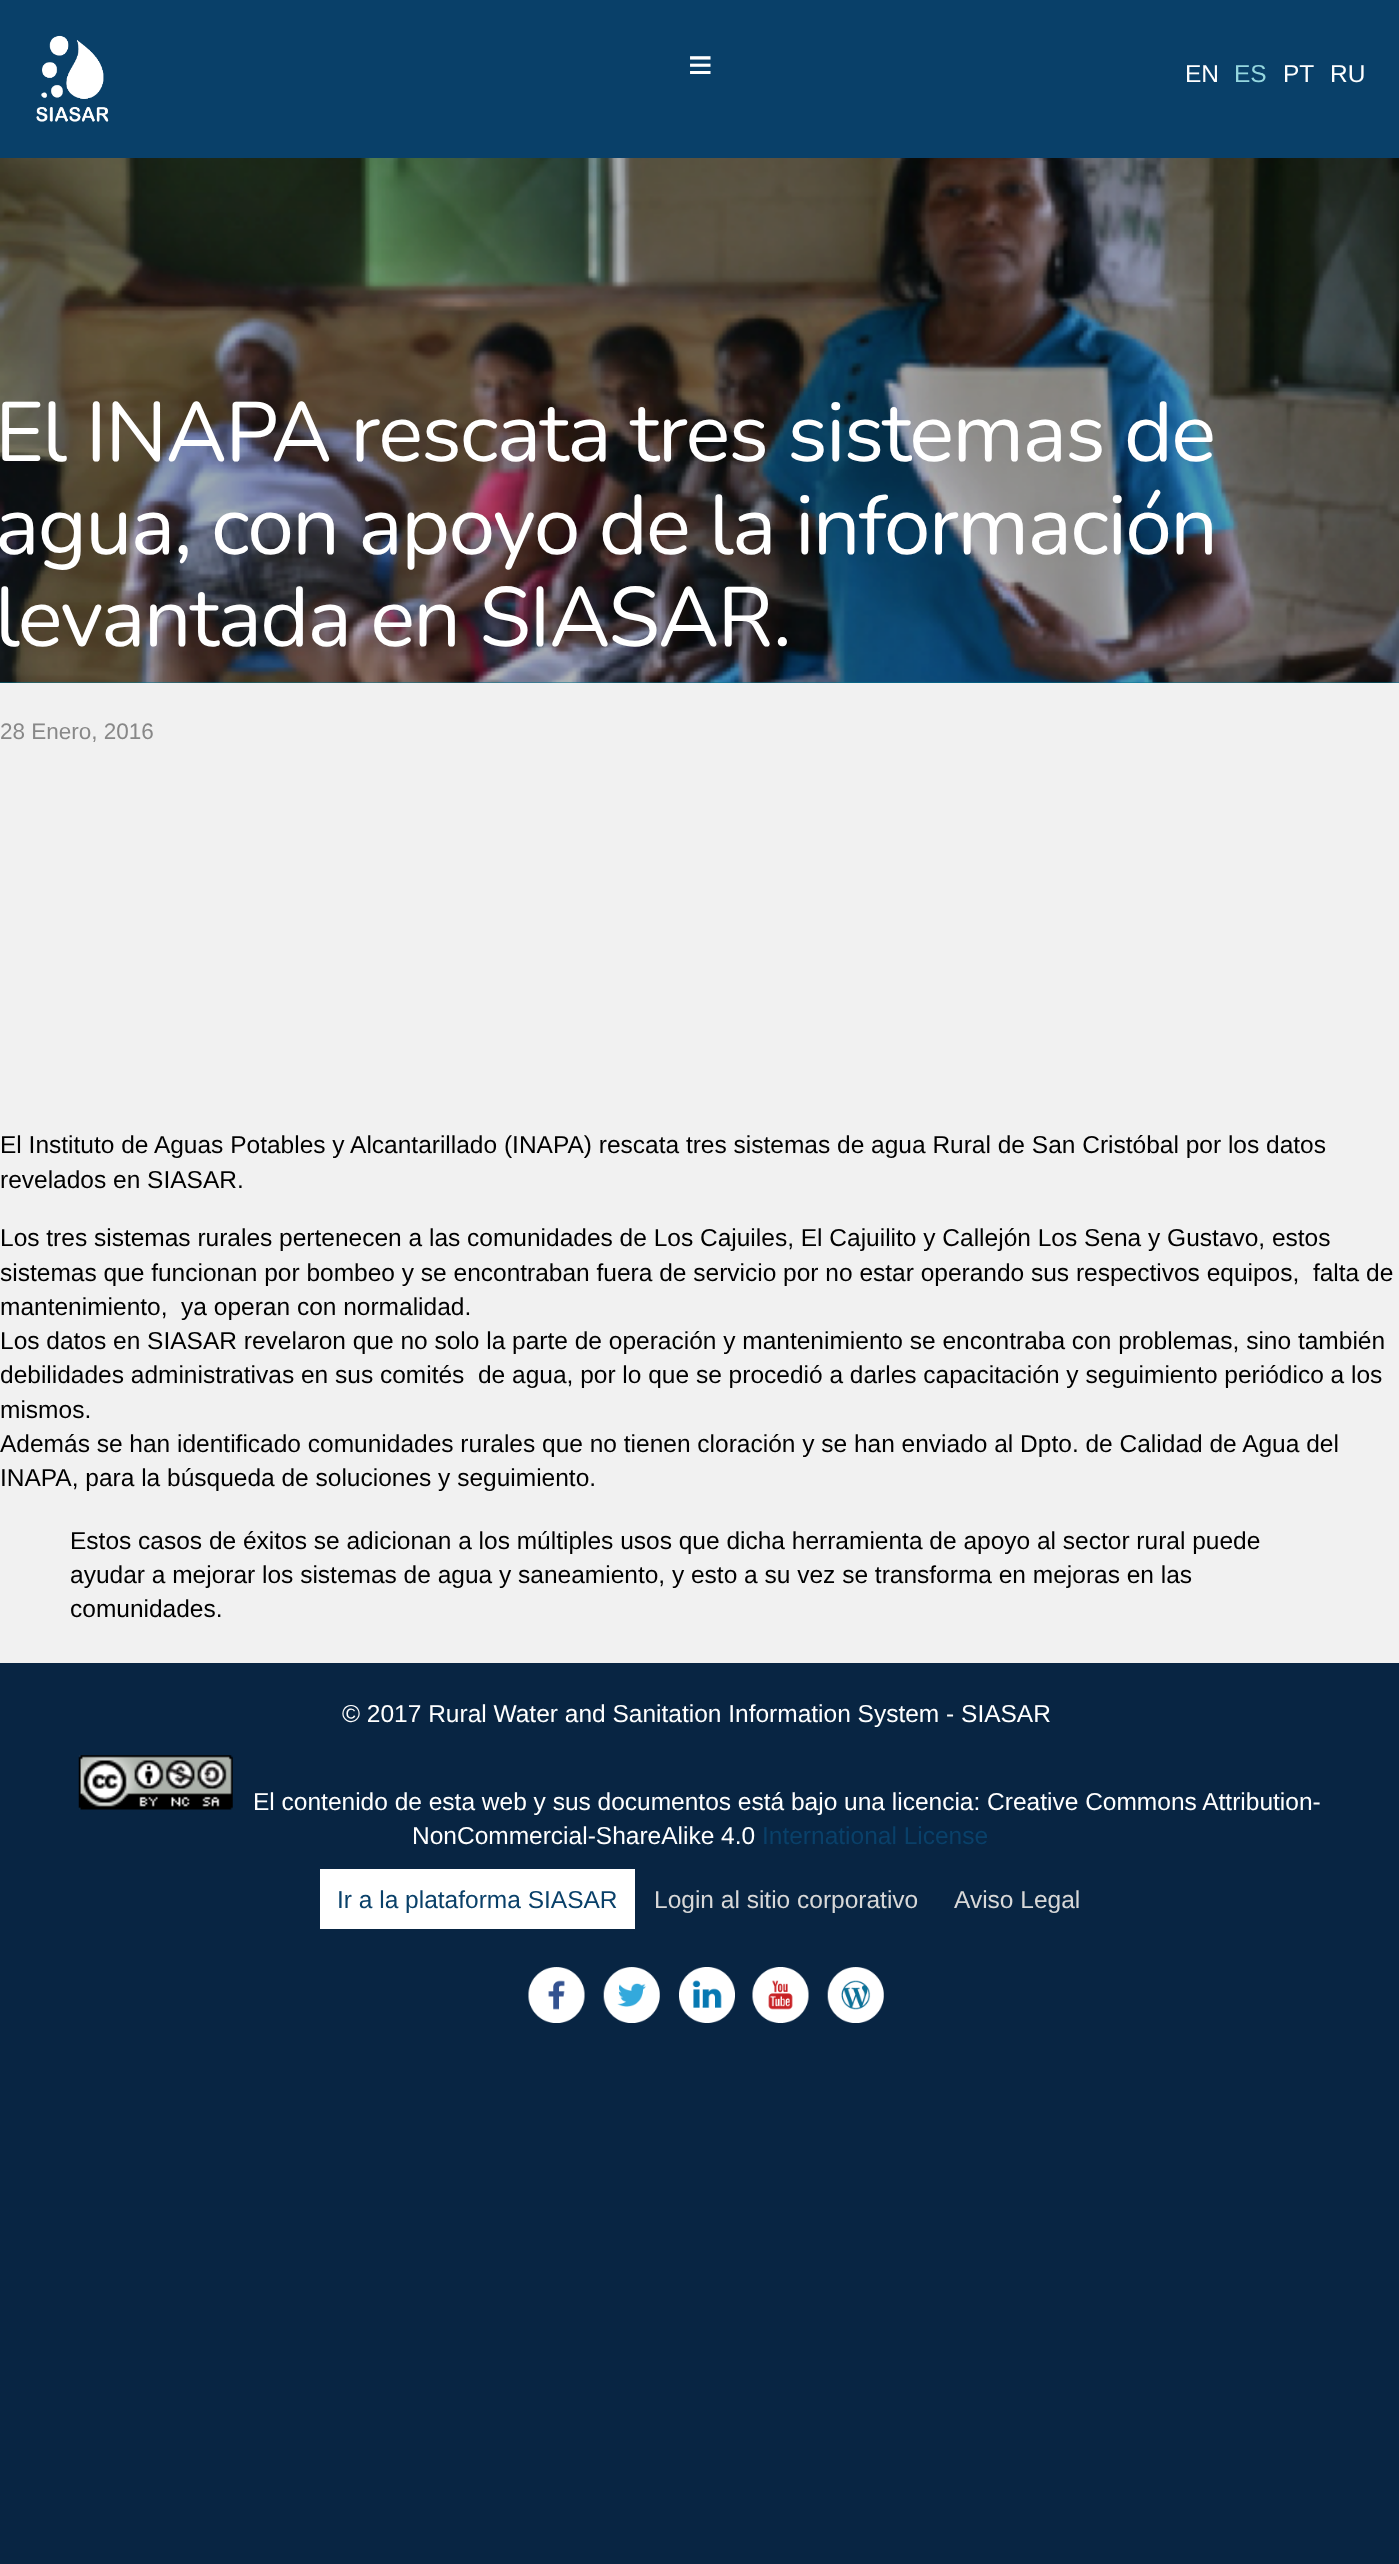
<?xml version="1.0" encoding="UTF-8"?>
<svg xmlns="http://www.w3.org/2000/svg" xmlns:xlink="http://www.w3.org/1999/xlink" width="1399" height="2564">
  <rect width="100%" height="100%" fill="#082543" />
  <rect y="683" width="1399" height="980" fill="#f1f1f1" />
  <rect width="1399" height="158" fill="#094069" />
  <image x="36" y="35" width="73" height="87" xlink:href="image1.png" />
  <rect y="682" width="1399" height="1" fill="#007993" />
  <image x="0" y="158" width="1399" height="525" xlink:href="image2.png" />
  <image x="78" y="1755" width="155" height="55" xlink:href="image3.png" />
  <rect x="320" y="1869" width="315" height="60" fill="#ffffff" />
  <image x="528" y="1967" width="57" height="56" xlink:href="image4.png" />
  <image x="603" y="1967" width="57" height="56" xlink:href="image5.png" />
  <image x="679" y="1967" width="56" height="56" xlink:href="image6.png" />
  <image x="752" y="1967" width="57" height="56" xlink:href="image7.png" />
  <image x="827" y="1967" width="57" height="56" xlink:href="image8.png" />
  <text x="688" y="79" style="font-family: Liberation Sans; font-size: 42px; fill: #ffffff">≡</text>
  <text x="1185" y="82" style="font-family: Liberation Sans; font-size: 24.5px; fill: #ffffff">EN</text>
  <text x="1234" y="82" style="font-family: Liberation Sans; font-size: 24.5px; fill: #95d7df">ES</text>
  <text x="1283" y="82" style="font-family: Liberation Sans; font-size: 24.5px; fill: #ffffff">PT</text>
  <text x="1330" y="82" style="font-family: Liberation Sans; font-size: 24.5px; fill: #ffffff">RU</text>
  <text x="-5" y="461" style="font-family: Nunito; font-size: 84px; font-weight: 200; letter-spacing: -1.7px; fill: #ffffff">El INAPA rescata tres sistemas de</text>
  <text x="-5" y="554" style="font-family: Nunito; font-size: 84px; font-weight: 200; letter-spacing: -1.7px; fill: #ffffff">agua, con apoyo de la información</text>
  <text x="-5" y="646" style="font-family: Nunito; font-size: 84px; font-weight: 200; letter-spacing: -1.7px; fill: #ffffff">levantada en SIASAR.</text>
  <text x="0" y="739" style="font-family: Liberation Sans; font-size: 22.5px; fill: #888888">28 Enero, 2016</text>
  <text x="0" y="1153" style="font-family: Liberation Sans; font-size: 24.5px; fill: #000000">El Instituto de Aguas Potables y Alcantarillado (INAPA) rescata tres sistemas de agua Rural de San Cristóbal por los datos</text>
  <text x="0" y="1188" style="font-family: Liberation Sans; font-size: 24.5px; fill: #000000">revelados en SIASAR.</text>
  <text x="0" y="1246" style="font-family: Liberation Sans; font-size: 24.5px; fill: #000000">Los tres sistemas rurales pertenecen a las comunidades de Los Cajuiles, El Cajuilito y Callejón Los Sena y Gustavo, estos</text>
  <text x="0" y="1281" style="font-family: Liberation Sans; font-size: 24.5px; fill: #000000" xml:space="preserve">sistemas que funcionan por bombeo y se encontraban fuera de servicio por no estar operando sus respectivos equipos,  falta de</text>
  <text x="0" y="1315" style="font-family: Liberation Sans; font-size: 24.5px; fill: #000000" xml:space="preserve">mantenimiento,  ya operan con normalidad.</text>
  <text x="0" y="1349" style="font-family: Liberation Sans; font-size: 24.5px; fill: #000000">Los datos en SIASAR revelaron que no solo la parte de operación y mantenimiento se encontraba con problemas, sino también</text>
  <text x="0" y="1383" style="font-family: Liberation Sans; font-size: 24.5px; fill: #000000" xml:space="preserve">debilidades administrativas en sus comités  de agua, por lo que se procedió a darles capacitación y seguimiento periódico a los</text>
  <text x="0" y="1418" style="font-family: Liberation Sans; font-size: 24.5px; fill: #000000">mismos.</text>
  <text x="0" y="1452" style="font-family: Liberation Sans; font-size: 24.5px; fill: #000000">Además se han identificado comunidades rurales que no tienen cloración y se han enviado al Dpto. de Calidad de Agua del</text>
  <text x="0" y="1486" style="font-family: Liberation Sans; font-size: 24.5px; fill: #000000">INAPA, para la búsqueda de soluciones y seguimiento.</text>
  <text x="70" y="1549" style="font-family: Liberation Sans; font-size: 24.5px; fill: #000000">Estos casos de éxitos se adicionan a los múltiples usos que dicha herramienta de apoyo al sector rural puede</text>
  <text x="70" y="1583" style="font-family: Liberation Sans; font-size: 24.5px; fill: #000000">ayudar a mejorar los sistemas de agua y saneamiento, y esto a su vez se transforma en mejoras en las</text>
  <text x="70" y="1617" style="font-family: Liberation Sans; font-size: 24.5px; fill: #000000">comunidades.</text>
  <text x="342" y="1722" style="font-family: Liberation Sans; font-size: 24.5px; fill: #ffffff">© 2017 Rural Water and Sanitation Information System - SIASAR</text>
  <text x="253" y="1810" style="font-family: Liberation Sans; font-size: 24.5px; fill: #ffffff">El contenido de esta web y sus documentos está bajo una licencia: Creative Commons Attribution-</text>
  <text x="412" y="1844" style="font-family: Liberation Sans; font-size: 24.5px; fill: #ffffff">NonCommercial-ShareAlike 4.0</text>
  <text x="762" y="1844" style="font-family: Liberation Sans; font-size: 24.5px; fill: #094069">International License</text>
  <text x="337" y="1908" style="font-family: Liberation Sans; font-size: 24.5px; fill: #094069">Ir a la plataforma SIASAR</text>
  <text x="654" y="1908" style="font-family: Liberation Sans; font-size: 24.5px; fill: #d8d8d8">Login al sitio corporativo</text>
  <text x="954" y="1908" style="font-family: Liberation Sans; font-size: 24.5px; fill: #d8d8d8">Aviso Legal</text>
</svg>
